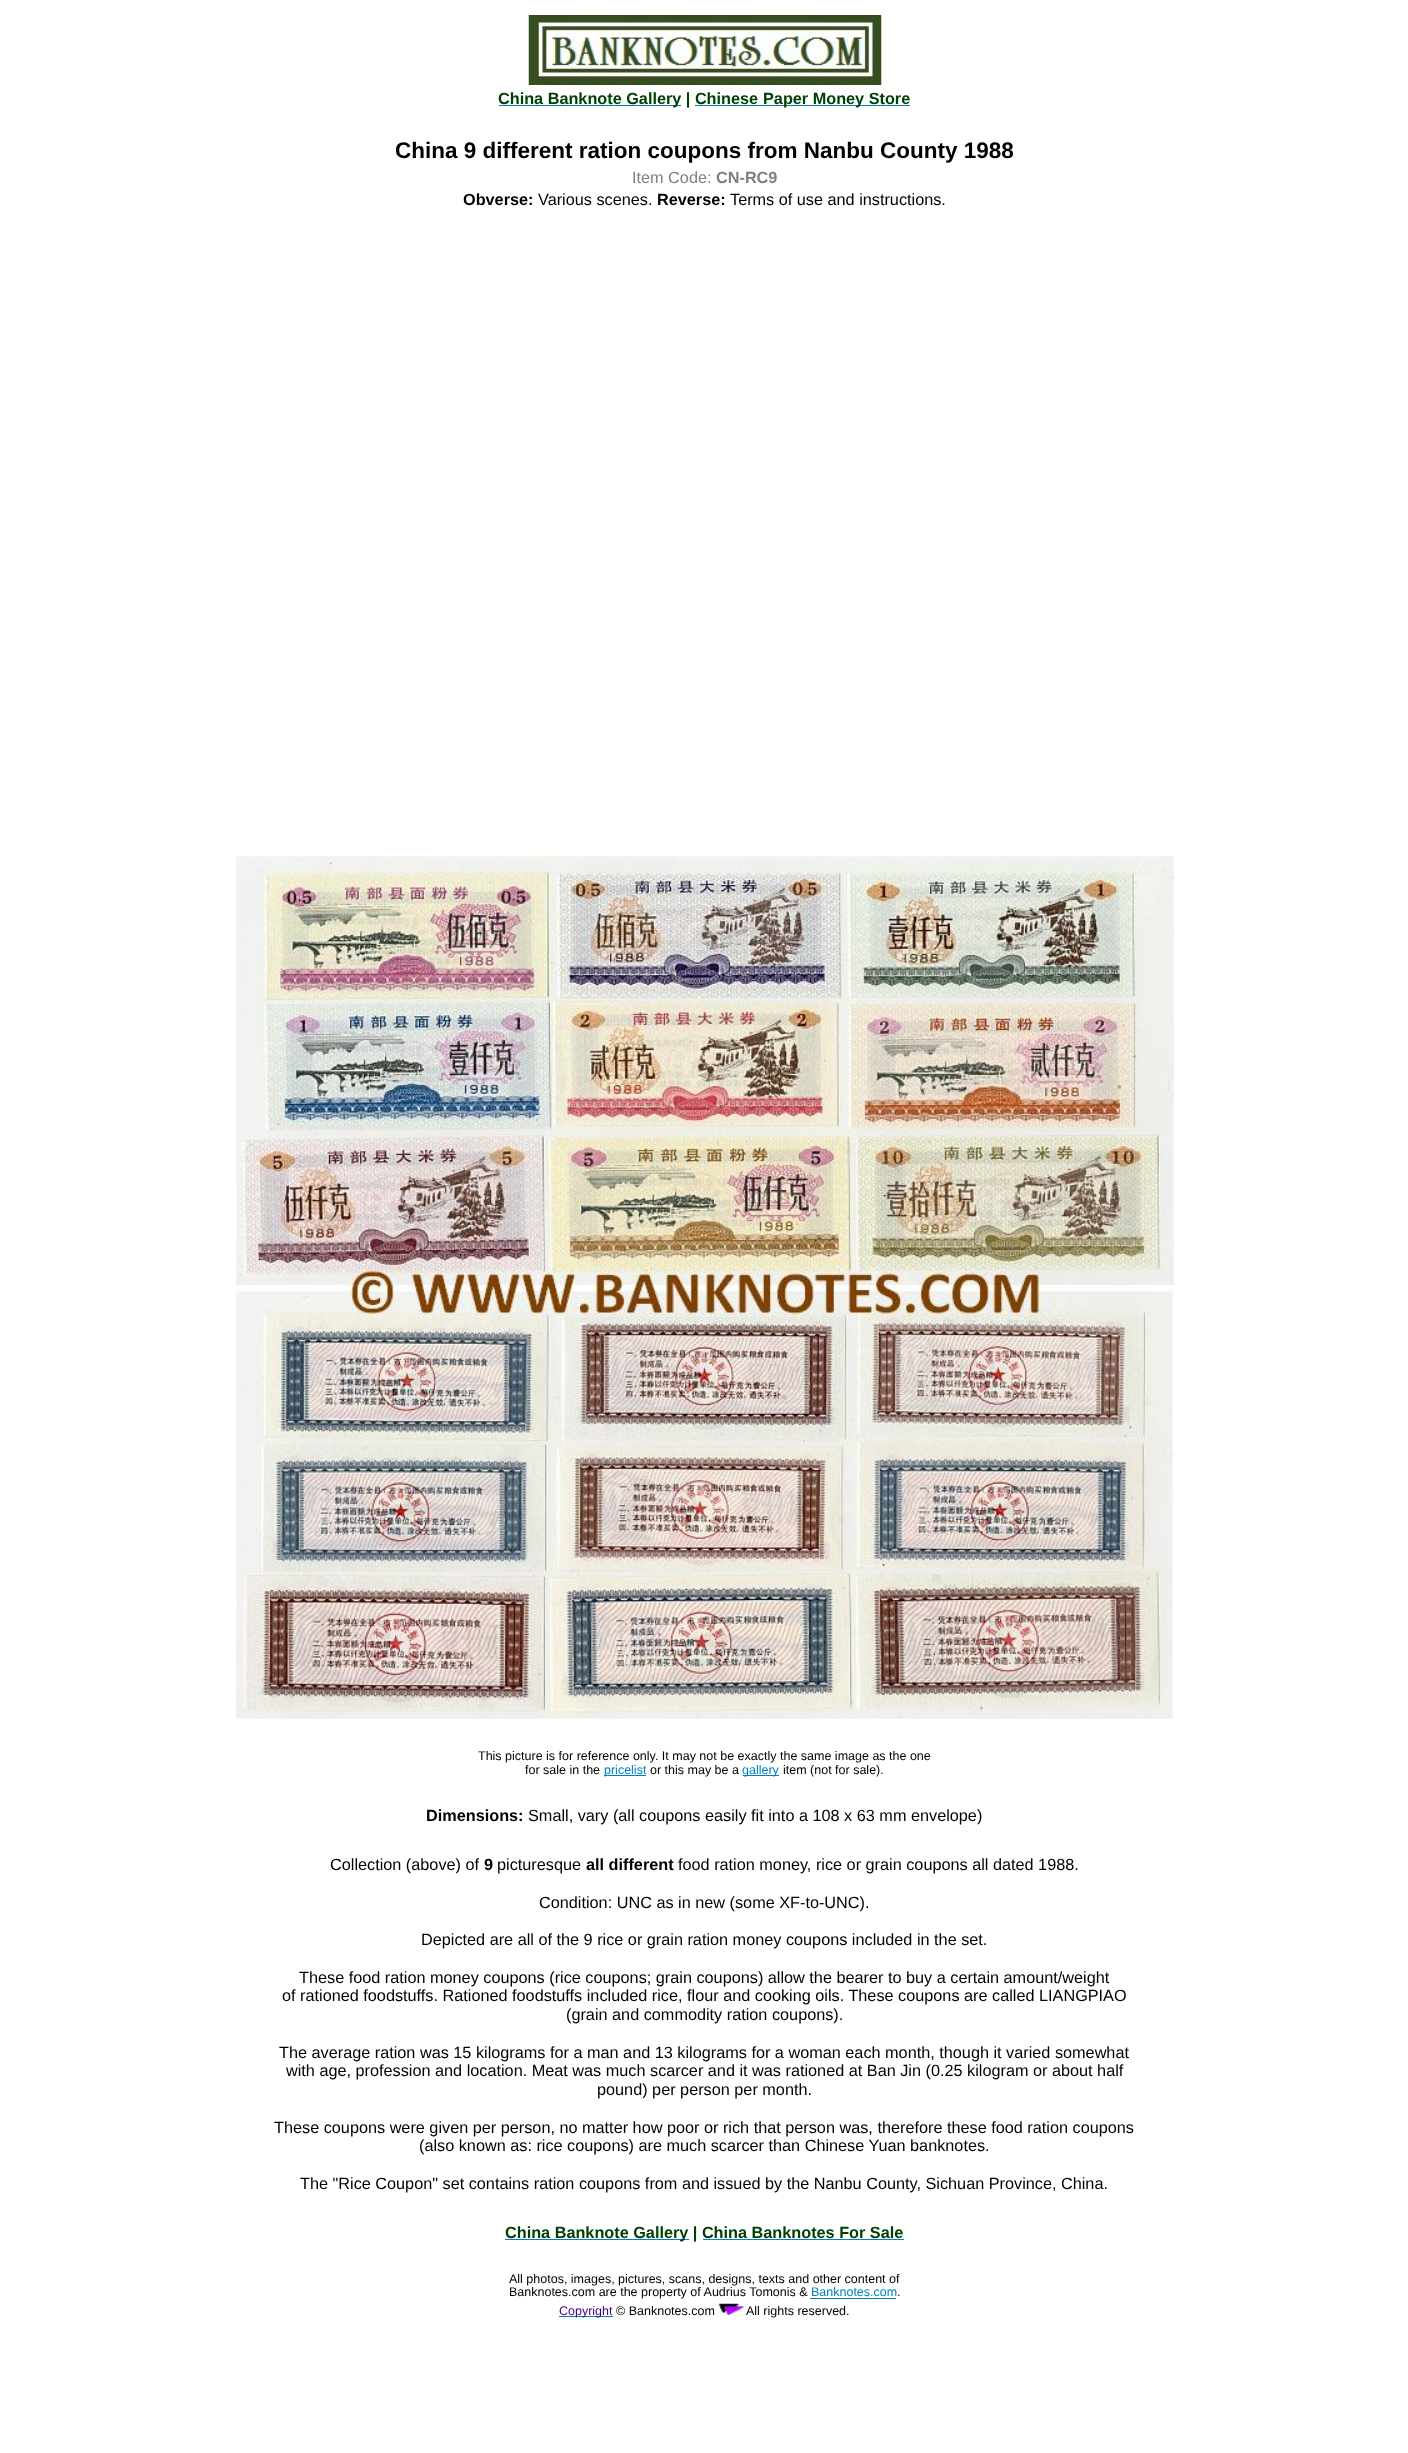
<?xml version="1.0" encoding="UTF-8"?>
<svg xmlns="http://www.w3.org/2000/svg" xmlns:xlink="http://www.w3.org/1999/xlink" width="1408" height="2453">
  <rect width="100%" height="100%" fill="#ffffff" />
  <image x="528" y="15" width="354" height="70" xlink:href="image1.png" />
  <rect x="499" y="105" width="182" height="1" fill="#0080c0" />
  <image x="236" y="856" width="938" height="863" xlink:href="image2.png" />
  <rect x="604" y="1775" width="42" height="1" fill="#0080c0" />
  <rect x="743" y="1775" width="36" height="1" fill="#0080c0" />
  <rect x="505" y="2239" width="184" height="1" fill="#0080c0" />
  <rect x="810" y="2298" width="86" height="1" fill="#0080c0" />
  <rect x="559" y="2316" width="54" height="1" fill="#0080c0" />
  <image x="718" y="2303" width="26" height="12" xlink:href="image3.png" />
  <text x="498" y="104" style="font-family: Liberation Sans; font-size: 16.25px; font-weight: bold; fill: #004000">China Banknote Gallery | Chinese</text>
  <rect x="695" y="105" width="215" height="1" fill="#0080c0" />
  <text x="763" y="104" style="font-family: Liberation Sans; font-size: 16.25px; font-weight: bold; fill: #004000">Paper Money Store</text>
  <text x="395" y="158" style="font-family: Liberation Sans; font-size: 22.5px; font-weight: bold; fill: #000000">China 9 different ration coupons from Nanbu County 1988</text>
  <text x="632" y="183" style="font-family: Liberation Sans; font-size: 16.25px; fill: #808080">Item Code:</text>
  <text x="716" y="183" style="font-family: Liberation Sans; font-size: 16.25px; font-weight: bold; fill: #808080">CN-RC9</text>
  <text x="463" y="205" style="font-family: Liberation Sans; font-size: 16.25px; font-weight: bold; fill: #000000">Obverse:</text>
  <text x="538" y="205" style="font-family: Liberation Sans; font-size: 16.25px; fill: #000000">Various scenes.</text>
  <text x="657" y="205" style="font-family: Liberation Sans; font-size: 16.25px; font-weight: bold; fill: #000000">Reverse:</text>
  <text x="730" y="205" style="font-family: Liberation Sans; font-size: 16.25px; fill: #000000">Terms of use and instructions.</text>
  <text x="478" y="1760" style="font-family: Liberation Sans; font-size: 12.5px; fill: #000000">This picture is for reference only. It may not be exactly the same image as the one</text>
  <text x="525" y="1774" style="font-family: Liberation Sans; font-size: 12.5px; fill: #000000">for sale in the</text>
  <text x="604" y="1774" style="font-family: Liberation Sans; font-size: 12.5px; fill: #0080c0">pricelist</text>
  <text x="650" y="1774" style="font-family: Liberation Sans; font-size: 12.5px; fill: #000000">or this may be a</text>
  <text x="742" y="1774" style="font-family: Liberation Sans; font-size: 12.5px; fill: #0080c0">gallery</text>
  <text x="783" y="1774" style="font-family: Liberation Sans; font-size: 12.5px; fill: #000000">item (not for sale).</text>
  <text x="426" y="1821" style="font-family: Liberation Sans; font-size: 16.25px; font-weight: bold; fill: #000000">Dimensions:</text>
  <text x="528" y="1821" style="font-family: Liberation Sans; font-size: 16.25px; fill: #000000">Small, vary (all coupons easily fit into a 108 x 63 mm envelope)</text>
  <text x="330" y="1870" style="font-family: Liberation Sans; font-size: 16.25px; fill: #000000">Collection (above) of</text>
  <text x="484" y="1870" style="font-family: Liberation Sans; font-size: 16.25px; font-weight: bold; fill: #000000">9</text>
  <text x="497" y="1870" style="font-family: Liberation Sans; font-size: 16.25px; fill: #000000">picturesque</text>
  <text x="586" y="1870" style="font-family: Liberation Sans; font-size: 16.25px; font-weight: bold; fill: #000000">all different</text>
  <text x="678" y="1870" style="font-family: Liberation Sans; font-size: 16.25px; fill: #000000">food ration money, rice or grain coupons all dated 1988.</text>
  <text x="539" y="1908" style="font-family: Liberation Sans; font-size: 16.25px; fill: #000000">Condition: UNC as in new (some XF-to-UNC).</text>
  <text x="421" y="1945" style="font-family: Liberation Sans; font-size: 16.25px; fill: #000000">Depicted are all of the 9 rice or grain ration money coupons included in the set.</text>
  <text x="299" y="1983" style="font-family: Liberation Sans; font-size: 16.25px; fill: #000000">These food ration money coupons (rice coupons; grain coupons) allow the bearer to buy a certain amount/weight</text>
  <text x="282" y="2001" style="font-family: Liberation Sans; font-size: 16.25px; fill: #000000">of rationed foodstuffs. Rationed foodstuffs included rice, flour and cooking oils. These coupons are called LIANGPIAO</text>
  <text x="566" y="2020" style="font-family: Liberation Sans; font-size: 16.25px; fill: #000000">(grain and commodity ration coupons).</text>
  <text x="279" y="2058" style="font-family: Liberation Sans; font-size: 16.25px; fill: #000000">The average ration was 15 kilograms for a man and 13 kilograms for a woman each month, though it varied somewhat</text>
  <text x="286" y="2076" style="font-family: Liberation Sans; font-size: 16.25px; fill: #000000">with age, profession and location. Meat was much scarcer and it was rationed at Ban Jin (0.25 kilogram or about half</text>
  <text x="597" y="2095" style="font-family: Liberation Sans; font-size: 16.25px; fill: #000000">pound) per person per month.</text>
  <text x="274" y="2133" style="font-family: Liberation Sans; font-size: 16.25px; fill: #000000">These coupons were given per person, no matter how poor or rich that person was, therefore these food ration coupons</text>
  <text x="419" y="2151" style="font-family: Liberation Sans; font-size: 16.25px; fill: #000000">(also known as: rice coupons) are much scarcer than Chinese Yuan banknotes.</text>
  <text x="300" y="2189" style="font-family: Liberation Sans; font-size: 16.25px; fill: #000000">The "Rice Coupon" set contains ration coupons from and issued by the Nanbu County, Sichuan Province, China.</text>
  <text x="505" y="2238" style="font-family: Liberation Sans; font-size: 16.25px; font-weight: bold; fill: #004000">China Banknote Gallery | China Banknotes For Sale</text>
  <rect x="703" y="2239" width="201" height="1" fill="#0080c0" />
  <text x="509" y="2283" style="font-family: Liberation Sans; font-size: 12.5px; fill: #000000">All photos, images, pictures, scans, designs, texts and other content of</text>
  <text x="509" y="2296" style="font-family: Liberation Sans; font-size: 12.5px; fill: #000000">Banknotes.com are the property of Audrius Tomonis &amp;</text>
  <text x="811" y="2296" style="font-family: Liberation Sans; font-size: 12.5px; fill: #0080c0">Banknotes.com</text>
  <text x="897" y="2296" style="font-family: Liberation Sans; font-size: 12.5px; fill: #000000">.</text>
  <text x="559" y="2315" style="font-family: Liberation Sans; font-size: 12.5px; fill: #400080">Copyright</text>
  <text x="616" y="2315" style="font-family: Liberation Sans; font-size: 12.5px; fill: #000000">© Banknotes.com</text>
  <text x="746" y="2315" style="font-family: Liberation Sans; font-size: 12.5px; fill: #000000">All rights reserved.</text>
</svg>
